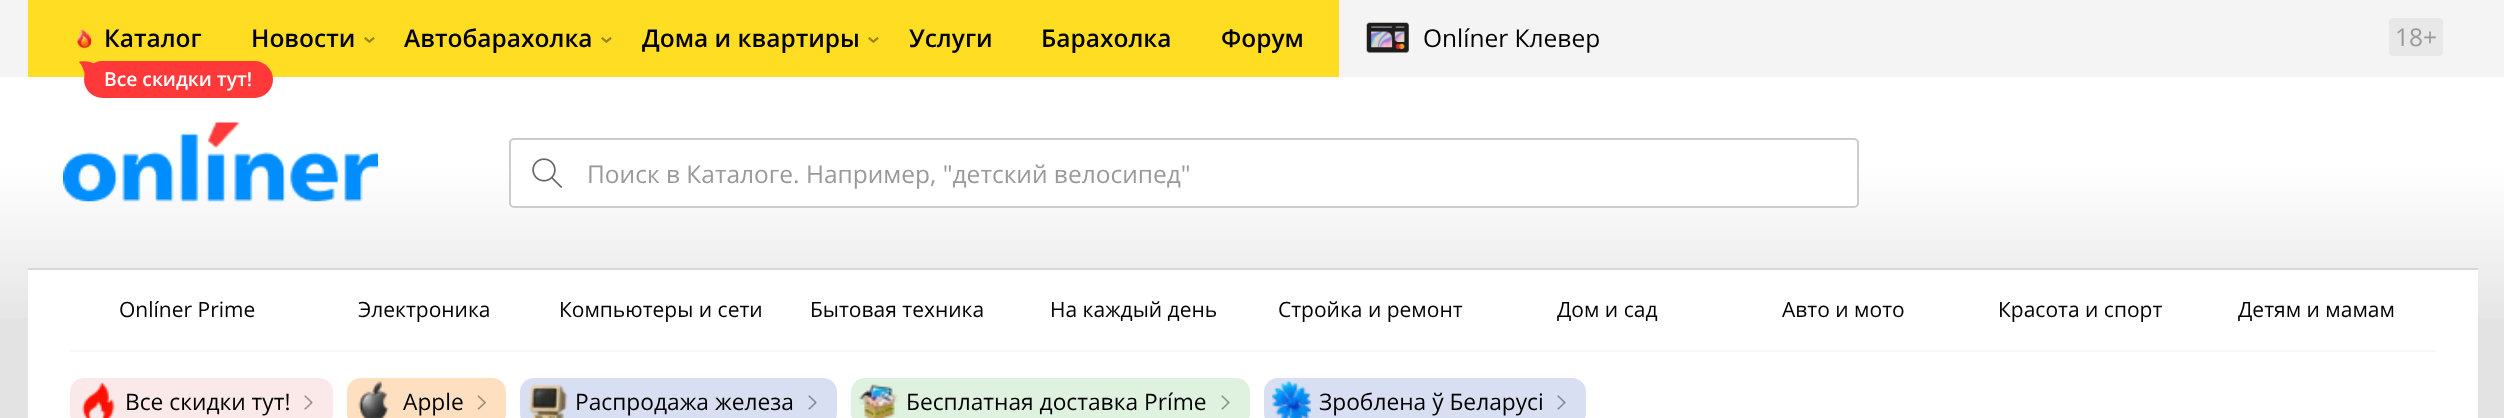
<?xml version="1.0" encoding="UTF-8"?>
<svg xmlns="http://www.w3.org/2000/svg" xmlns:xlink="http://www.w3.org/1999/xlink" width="2504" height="418">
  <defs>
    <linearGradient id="g1" gradientUnits="userSpaceOnUse" x1="1252" y1="0" x2="1252" y2="333"><stop offset="0" stop-color="#ffffff" /><stop offset="0.5" stop-color="#ffffff" /><stop offset="1" stop-color="#e3e3e3" /></linearGradient>
  </defs>
  <rect width="100%" height="100%" fill="#e3e3e3" />
  <rect y="77" width="2504" height="241" fill="url(#g1)" />
  <rect width="2504" height="77" fill="#f4f4f4" />
  <rect x="28" width="1311" height="77" fill="#ffdd22" />
  <image x="77" y="29" width="15" height="20" xlink:href="image1.png" />
  <rect x="84" y="61" width="189" height="37" rx="18.5" fill="#ff3939" />
  <image x="79" y="61" width="22" height="15" xlink:href="image2.png" />
  <image x="1366" y="22" width="43" height="31" xlink:href="image3.png" />
  <rect x="2389" y="18" width="54" height="38" rx="4" fill="#e8e8e8" />
  <image x="63" y="122" width="315" height="80" xlink:href="image4.png" />
  <rect x="509" y="138" width="1350" height="70" rx="5" fill="#ffffff" />
  <image x="532" y="158" width="31" height="31" xlink:href="image5.png" />
  <rect x="510" y="139" width="1348" height="68" rx="4" fill="none" stroke="#cccccc" stroke-width="2" />
  <rect x="28" y="270" width="2450" height="148" fill="#ffffff" />
  <rect x="28" y="268" width="2450" height="2" fill="#d8d8d8" />
  <rect x="70" y="350" width="2366" height="2" fill="#f6f6f6" />
  <rect x="70" y="378" width="263" height="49" rx="14" fill="#fbe9e9" />
  <image x="304" y="395" width="9" height="15" xlink:href="image6.png" />
  <image x="82" y="382" width="33" height="36" xlink:href="image7.png" />
  <rect x="347" y="378" width="159" height="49" rx="14" fill="#fee0c1" />
  <image x="477" y="395" width="9" height="15" xlink:href="image8.png" />
  <image x="358" y="381" width="31" height="37" xlink:href="image9.png" />
  <rect x="520" y="378" width="317" height="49" rx="14" fill="#d9dff2" />
  <image x="808" y="395" width="9" height="15" xlink:href="image10.png" />
  <image x="528" y="384" width="40" height="34" xlink:href="image11.png" />
  <rect x="851" y="378" width="399" height="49" rx="14" fill="#dff2df" />
  <image x="1221" y="395" width="9" height="15" xlink:href="image12.png" />
  <image x="858" y="384" width="41" height="34" xlink:href="image13.png" />
  <rect x="1264" y="378" width="322" height="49" rx="14" fill="#d9dff2" />
  <image x="1557" y="395" width="9" height="15" xlink:href="image10.png" />
  <image x="1272" y="381" width="39" height="37" xlink:href="image14.png" />
  <text x="104" y="47" style="font-family: Open Sans; font-size: 24.5px; font-weight: 600; fill: #000000">Каталог</text>
  <text x="104" y="86" style="font-family: Open Sans; font-size: 19.25px; font-weight: 600; fill: #ffffff">Все скидки тут!</text>
  <text x="251" y="47" style="font-family: Open Sans; font-size: 24.5px; font-weight: 600; fill: #000000">Новости</text>
  <text x="376" y="44" transform="rotate(-90 376 44)" style="font-family: Open Sans; font-size: 24.5px; font-weight: 600; fill: #998514">‹</text>
  <text x="404" y="47" style="font-family: Open Sans; font-size: 24.5px; font-weight: 600; fill: #000000">Автобарахолка</text>
  <text x="613" y="44" transform="rotate(-90 613 44)" style="font-family: Open Sans; font-size: 24.5px; font-weight: 600; fill: #998514">‹</text>
  <text x="642" y="47" style="font-family: Open Sans; font-size: 24.5px; font-weight: 600; fill: #000000">Дома и квартиры</text>
  <text x="880" y="44" transform="rotate(-90 880 44)" style="font-family: Open Sans; font-size: 24.5px; font-weight: 600; fill: #998514">‹</text>
  <text x="909" y="47" style="font-family: Open Sans; font-size: 24.5px; font-weight: 600; fill: #000000">Услуги</text>
  <text x="1041" y="47" style="font-family: Open Sans; font-size: 24.5px; font-weight: 600; fill: #000000">Барахолка</text>
  <text x="1221" y="47" style="font-family: Open Sans; font-size: 24.5px; font-weight: 600; fill: #000000">Форум</text>
  <text x="1423" y="47" style="font-family: Open Sans; font-size: 24.5px; fill: #000000">Onlíner Клевер</text>
  <text x="2395" y="46" style="font-family: Open Sans; font-size: 24.5px; fill: #999999">18+</text>
  <text x="587" y="183" style="font-family: Open Sans; font-size: 24.5px; fill: #999999">Поиск в Каталоге. Например, "детский велосипед"</text>
  <text x="119" y="317" style="font-family: Open Sans; font-size: 21px; fill: #000000">Onlíner Prime</text>
  <text x="358" y="317" style="font-family: Open Sans; font-size: 21px; fill: #000000">Электроника</text>
  <text x="559" y="317" style="font-family: Open Sans; font-size: 21px; fill: #000000">Компьютеры и сети</text>
  <text x="810" y="317" style="font-family: Open Sans; font-size: 21px; fill: #000000">Бытовая техника</text>
  <text x="1050" y="317" style="font-family: Open Sans; font-size: 21px; fill: #000000">На каждый день</text>
  <text x="1278" y="317" style="font-family: Open Sans; font-size: 21px; fill: #000000">Стройка и ремонт</text>
  <text x="1557" y="317" style="font-family: Open Sans; font-size: 21px; fill: #000000">Дом и сад</text>
  <text x="1782" y="317" style="font-family: Open Sans; font-size: 21px; fill: #000000">Авто и мото</text>
  <text x="1998" y="317" style="font-family: Open Sans; font-size: 21px; fill: #000000">Красота и спорт</text>
  <text x="2238" y="317" style="font-family: Open Sans; font-size: 21px; fill: #000000">Детям и мамам</text>
  <text x="125" y="410" style="font-family: Open Sans; font-size: 22.75px; fill: #000000">Все скидки тут!</text>
  <text x="403" y="410" style="font-family: Open Sans; font-size: 22.75px; fill: #000000">Apple</text>
  <text x="575" y="410" style="font-family: Open Sans; font-size: 22.75px; fill: #000000">Распродажа железа</text>
  <text x="906" y="410" style="font-family: Open Sans; font-size: 22.75px; fill: #000000">Бесплатная доставка Príme</text>
  <text x="1319" y="410" style="font-family: Open Sans; font-size: 22.75px; fill: #000000">Зроблена ў Беларусі</text>
</svg>
